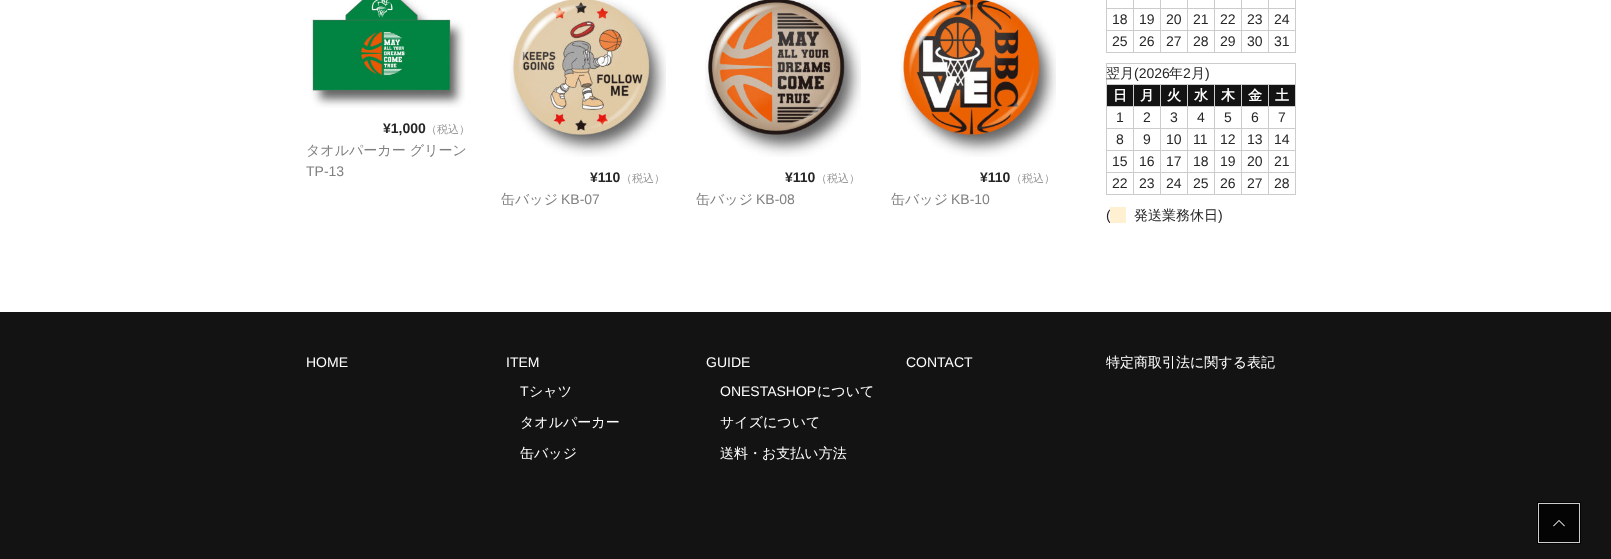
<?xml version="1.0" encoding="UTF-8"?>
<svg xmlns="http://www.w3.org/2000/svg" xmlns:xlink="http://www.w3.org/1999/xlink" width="1611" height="559">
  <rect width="100%" height="100%" fill="#ffffff" />
  <image x="310" y="0" width="155" height="108" xlink:href="image1.png" />
  <image x="510" y="0" width="156" height="157" xlink:href="image2.png" />
  <image x="705" y="0" width="156" height="157" xlink:href="image3.png" />
  <image x="900" y="0" width="156" height="157" xlink:href="image4.png" />
  <rect x="1295" width="1" height="53" fill="#cccccc" />
  <rect x="1106" y="52" width="190" height="1" fill="#cccccc" />
  <rect x="1106" width="1" height="53" fill="#cccccc" />
  <rect x="1268" y="8" width="28" height="1" fill="#cccccc" />
  <rect x="1268" y="30" width="28" height="1" fill="#cccccc" />
  <rect x="1268" y="30" width="1" height="23" fill="#cccccc" />
  <rect x="1241" y="30" width="28" height="1" fill="#cccccc" />
  <rect x="1268" y="8" width="1" height="23" fill="#cccccc" />
  <rect x="1241" y="8" width="28" height="1" fill="#cccccc" />
  <rect x="1241" y="30" width="1" height="23" fill="#cccccc" />
  <rect x="1214" y="30" width="28" height="1" fill="#cccccc" />
  <rect x="1241" y="8" width="1" height="23" fill="#cccccc" />
  <rect x="1214" y="8" width="28" height="1" fill="#cccccc" />
  <rect x="1214" y="30" width="1" height="23" fill="#cccccc" />
  <rect x="1187" y="30" width="28" height="1" fill="#cccccc" />
  <rect x="1214" y="8" width="1" height="23" fill="#cccccc" />
  <rect x="1187" y="8" width="28" height="1" fill="#cccccc" />
  <rect x="1187" y="30" width="1" height="23" fill="#cccccc" />
  <rect x="1160" y="30" width="28" height="1" fill="#cccccc" />
  <rect x="1187" y="8" width="1" height="23" fill="#cccccc" />
  <rect x="1160" y="8" width="28" height="1" fill="#cccccc" />
  <rect x="1160" y="30" width="1" height="23" fill="#cccccc" />
  <rect x="1133" y="30" width="28" height="1" fill="#cccccc" />
  <rect x="1160" y="8" width="1" height="23" fill="#cccccc" />
  <rect x="1133" y="8" width="28" height="1" fill="#cccccc" />
  <rect x="1133" y="30" width="1" height="23" fill="#cccccc" />
  <rect x="1106" y="30" width="28" height="1" fill="#cccccc" />
  <rect x="1133" y="8" width="1" height="23" fill="#cccccc" />
  <rect x="1106" y="8" width="28" height="1" fill="#cccccc" />
  <rect x="1133" width="1" height="9" fill="#cccccc" />
  <rect x="1160" width="1" height="9" fill="#cccccc" />
  <rect x="1187" width="1" height="9" fill="#cccccc" />
  <rect x="1214" width="1" height="9" fill="#cccccc" />
  <rect x="1241" width="1" height="9" fill="#cccccc" />
  <rect x="1268" width="1" height="9" fill="#cccccc" />
  <rect x="1106" y="63" width="190" height="1" fill="#cccccc" />
  <rect x="1295" y="63" width="1" height="132" fill="#cccccc" />
  <rect x="1106" y="194" width="190" height="1" fill="#cccccc" />
  <rect x="1106" y="63" width="1" height="132" fill="#cccccc" />
  <rect x="1107" y="85" width="26" height="21" fill="#131313" />
  <rect x="1268" y="84" width="28" height="1" fill="#cccccc" />
  <rect x="1268" y="106" width="28" height="1" fill="#cccccc" />
  <rect x="1268" y="128" width="28" height="1" fill="#cccccc" />
  <rect x="1268" y="150" width="28" height="1" fill="#cccccc" />
  <rect x="1268" y="172" width="28" height="1" fill="#cccccc" />
  <rect x="1268" y="172" width="1" height="23" fill="#cccccc" />
  <rect x="1241" y="172" width="28" height="1" fill="#cccccc" />
  <rect x="1268" y="150" width="1" height="23" fill="#cccccc" />
  <rect x="1241" y="150" width="28" height="1" fill="#cccccc" />
  <rect x="1268" y="128" width="1" height="23" fill="#cccccc" />
  <rect x="1241" y="128" width="28" height="1" fill="#cccccc" />
  <rect x="1268" y="106" width="1" height="23" fill="#cccccc" />
  <rect x="1241" y="106" width="28" height="1" fill="#cccccc" />
  <rect x="1268" y="84" width="1" height="23" fill="#cccccc" />
  <rect x="1241" y="84" width="28" height="1" fill="#cccccc" />
  <rect x="1241" y="172" width="1" height="23" fill="#cccccc" />
  <rect x="1214" y="172" width="28" height="1" fill="#cccccc" />
  <rect x="1241" y="150" width="1" height="23" fill="#cccccc" />
  <rect x="1214" y="150" width="28" height="1" fill="#cccccc" />
  <rect x="1241" y="128" width="1" height="23" fill="#cccccc" />
  <rect x="1214" y="128" width="28" height="1" fill="#cccccc" />
  <rect x="1241" y="106" width="1" height="23" fill="#cccccc" />
  <rect x="1214" y="106" width="28" height="1" fill="#cccccc" />
  <rect x="1241" y="84" width="1" height="23" fill="#cccccc" />
  <rect x="1214" y="84" width="28" height="1" fill="#cccccc" />
  <rect x="1214" y="172" width="1" height="23" fill="#cccccc" />
  <rect x="1187" y="172" width="28" height="1" fill="#cccccc" />
  <rect x="1214" y="150" width="1" height="23" fill="#cccccc" />
  <rect x="1187" y="150" width="28" height="1" fill="#cccccc" />
  <rect x="1214" y="128" width="1" height="23" fill="#cccccc" />
  <rect x="1187" y="128" width="28" height="1" fill="#cccccc" />
  <rect x="1214" y="106" width="1" height="23" fill="#cccccc" />
  <rect x="1187" y="106" width="28" height="1" fill="#cccccc" />
  <rect x="1214" y="84" width="1" height="23" fill="#cccccc" />
  <rect x="1187" y="84" width="28" height="1" fill="#cccccc" />
  <rect x="1187" y="172" width="1" height="23" fill="#cccccc" />
  <rect x="1160" y="172" width="28" height="1" fill="#cccccc" />
  <rect x="1187" y="150" width="1" height="23" fill="#cccccc" />
  <rect x="1160" y="150" width="28" height="1" fill="#cccccc" />
  <rect x="1187" y="128" width="1" height="23" fill="#cccccc" />
  <rect x="1160" y="128" width="28" height="1" fill="#cccccc" />
  <rect x="1187" y="106" width="1" height="23" fill="#cccccc" />
  <rect x="1160" y="106" width="28" height="1" fill="#cccccc" />
  <rect x="1187" y="84" width="1" height="23" fill="#cccccc" />
  <rect x="1160" y="84" width="28" height="1" fill="#cccccc" />
  <rect x="1160" y="172" width="1" height="23" fill="#cccccc" />
  <rect x="1133" y="172" width="28" height="1" fill="#cccccc" />
  <rect x="1160" y="150" width="1" height="23" fill="#cccccc" />
  <rect x="1133" y="150" width="28" height="1" fill="#cccccc" />
  <rect x="1160" y="128" width="1" height="23" fill="#cccccc" />
  <rect x="1133" y="128" width="28" height="1" fill="#cccccc" />
  <rect x="1160" y="106" width="1" height="23" fill="#cccccc" />
  <rect x="1133" y="106" width="28" height="1" fill="#cccccc" />
  <rect x="1160" y="84" width="1" height="23" fill="#cccccc" />
  <rect x="1133" y="84" width="28" height="1" fill="#cccccc" />
  <rect x="1133" y="172" width="1" height="23" fill="#cccccc" />
  <rect x="1106" y="172" width="28" height="1" fill="#cccccc" />
  <rect x="1133" y="150" width="1" height="23" fill="#cccccc" />
  <rect x="1106" y="150" width="28" height="1" fill="#cccccc" />
  <rect x="1133" y="128" width="1" height="23" fill="#cccccc" />
  <rect x="1106" y="128" width="28" height="1" fill="#cccccc" />
  <rect x="1133" y="106" width="1" height="23" fill="#cccccc" />
  <rect x="1106" y="106" width="28" height="1" fill="#cccccc" />
  <rect x="1133" y="84" width="1" height="23" fill="#cccccc" />
  <rect x="1106" y="84" width="28" height="1" fill="#cccccc" />
  <rect x="1134" y="85" width="26" height="21" fill="#131313" />
  <rect x="1161" y="85" width="26" height="21" fill="#131313" />
  <rect x="1188" y="85" width="26" height="21" fill="#131313" />
  <rect x="1215" y="85" width="26" height="21" fill="#131313" />
  <rect x="1242" y="85" width="26" height="21" fill="#131313" />
  <rect x="1269" y="85" width="26" height="21" fill="#131313" />
  <rect y="312" width="1611" height="247" fill="#131313" />
  <rect x="1538" y="503" width="42" height="40" fill="none" stroke="#040404" stroke-width="2" />
  <rect x="1538.5" y="503.5" width="41" height="39" fill="none" stroke="#cdcdcd" />
  <rect x="1539" y="504" width="40" height="38" fill="#040404" />
  <image x="1553" y="520" width="12" height="7" xlink:href="image5.png" />
  <text x="383" y="133" style="font-family: Liberation Sans; font-size: 14px; font-weight: bold; fill: #262626">¥1,000</text>
  <text x="426" y="133" style="font-family: WenQuanYi Zen Hei; font-size: 11px; font-weight: 500; fill: #999999">（税込）</text>
  <text x="306" y="155" style="font-family: WenQuanYi Zen Hei; font-size: 14px; font-weight: 500; fill: #808080">タオルパーカー グリーン</text>
  <text x="306" y="176" style="font-family: Liberation Sans; font-size: 14px; fill: #808080">TP-13</text>
  <text x="590" y="182" style="font-family: Liberation Sans; font-size: 14px; font-weight: bold; fill: #262626">¥110</text>
  <text x="621" y="182" style="font-family: WenQuanYi Zen Hei; font-size: 11px; font-weight: 500; fill: #999999">（税込）</text>
  <text x="501" y="204" style="font-family: WenQuanYi Zen Hei; font-size: 14px; font-weight: 500; fill: #808080">缶バッジ</text>
  <text x="561" y="204" style="font-family: Liberation Sans; font-size: 14px; fill: #808080">KB-07</text>
  <text x="785" y="182" style="font-family: Liberation Sans; font-size: 14px; font-weight: bold; fill: #262626">¥110</text>
  <text x="816" y="182" style="font-family: WenQuanYi Zen Hei; font-size: 11px; font-weight: 500; fill: #999999">（税込）</text>
  <text x="696" y="204" style="font-family: WenQuanYi Zen Hei; font-size: 14px; font-weight: 500; fill: #808080">缶バッジ</text>
  <text x="756" y="204" style="font-family: Liberation Sans; font-size: 14px; fill: #808080">KB-08</text>
  <text x="980" y="182" style="font-family: Liberation Sans; font-size: 14px; font-weight: bold; fill: #262626">¥110</text>
  <text x="1011" y="182" style="font-family: WenQuanYi Zen Hei; font-size: 11px; font-weight: 500; fill: #999999">（税込）</text>
  <text x="891" y="204" style="font-family: WenQuanYi Zen Hei; font-size: 14px; font-weight: 500; fill: #808080">缶バッジ</text>
  <text x="951" y="204" style="font-family: Liberation Sans; font-size: 14px; fill: #808080">KB-10</text>
  <text x="1112" y="24" style="font-family: Liberation Sans; font-size: 14px; fill: #262626">18</text>
  <text x="1139" y="24" style="font-family: Liberation Sans; font-size: 14px; fill: #262626">19</text>
  <text x="1166" y="24" style="font-family: Liberation Sans; font-size: 14px; fill: #262626">20</text>
  <text x="1193" y="24" style="font-family: Liberation Sans; font-size: 14px; fill: #262626">21</text>
  <text x="1220" y="24" style="font-family: Liberation Sans; font-size: 14px; fill: #262626">22</text>
  <text x="1247" y="24" style="font-family: Liberation Sans; font-size: 14px; fill: #262626">23</text>
  <text x="1274" y="24" style="font-family: Liberation Sans; font-size: 14px; fill: #262626">24</text>
  <text x="1112" y="46" style="font-family: Liberation Sans; font-size: 14px; fill: #262626">25</text>
  <text x="1139" y="46" style="font-family: Liberation Sans; font-size: 14px; fill: #262626">26</text>
  <text x="1166" y="46" style="font-family: Liberation Sans; font-size: 14px; fill: #262626">27</text>
  <text x="1193" y="46" style="font-family: Liberation Sans; font-size: 14px; fill: #262626">28</text>
  <text x="1220" y="46" style="font-family: Liberation Sans; font-size: 14px; fill: #262626">29</text>
  <text x="1247" y="46" style="font-family: Liberation Sans; font-size: 14px; fill: #262626">30</text>
  <text x="1274" y="46" style="font-family: Liberation Sans; font-size: 14px; fill: #262626">31</text>
  <text x="1106" y="78" style="font-family: WenQuanYi Zen Hei; font-size: 14px; font-weight: 500; fill: #262626">翌月</text>
  <text x="1134" y="78" style="font-family: Liberation Sans; font-size: 14px; fill: #262626">(2026</text>
  <text x="1169" y="78" style="font-family: WenQuanYi Zen Hei; font-size: 14px; font-weight: 500; fill: #262626">年</text>
  <text x="1183" y="78" style="font-family: Liberation Sans; font-size: 14px; fill: #262626">2</text>
  <text x="1191" y="78" style="font-family: WenQuanYi Zen Hei; font-size: 14px; font-weight: 500; fill: #262626">月</text>
  <text x="1205" y="78" style="font-family: Liberation Sans; font-size: 14px; fill: #262626">)</text>
  <text x="1113" y="100" style="font-family: WenQuanYi Zen Hei; font-size: 14px; font-weight: bold; fill: #ffffff">日</text>
  <text x="1140" y="100" style="font-family: WenQuanYi Zen Hei; font-size: 14px; font-weight: bold; fill: #ffffff">月</text>
  <text x="1167" y="100" style="font-family: WenQuanYi Zen Hei; font-size: 14px; font-weight: bold; fill: #ffffff">火</text>
  <text x="1194" y="100" style="font-family: WenQuanYi Zen Hei; font-size: 14px; font-weight: bold; fill: #ffffff">水</text>
  <text x="1221" y="100" style="font-family: WenQuanYi Zen Hei; font-size: 14px; font-weight: bold; fill: #ffffff">木</text>
  <text x="1248" y="100" style="font-family: WenQuanYi Zen Hei; font-size: 14px; font-weight: bold; fill: #ffffff">金</text>
  <text x="1275" y="100" style="font-family: WenQuanYi Zen Hei; font-size: 14px; font-weight: bold; fill: #ffffff">土</text>
  <text x="1116" y="122" style="font-family: Liberation Sans; font-size: 14px; fill: #262626">1</text>
  <text x="1143" y="122" style="font-family: Liberation Sans; font-size: 14px; fill: #262626">2</text>
  <text x="1170" y="122" style="font-family: Liberation Sans; font-size: 14px; fill: #262626">3</text>
  <text x="1197" y="122" style="font-family: Liberation Sans; font-size: 14px; fill: #262626">4</text>
  <text x="1224" y="122" style="font-family: Liberation Sans; font-size: 14px; fill: #262626">5</text>
  <text x="1251" y="122" style="font-family: Liberation Sans; font-size: 14px; fill: #262626">6</text>
  <text x="1278" y="122" style="font-family: Liberation Sans; font-size: 14px; fill: #262626">7</text>
  <text x="1116" y="144" style="font-family: Liberation Sans; font-size: 14px; fill: #262626">8</text>
  <text x="1143" y="144" style="font-family: Liberation Sans; font-size: 14px; fill: #262626">9</text>
  <text x="1166" y="144" style="font-family: Liberation Sans; font-size: 14px; fill: #262626">10</text>
  <text x="1193" y="144" style="font-family: Liberation Sans; font-size: 14px; fill: #262626">11</text>
  <text x="1220" y="144" style="font-family: Liberation Sans; font-size: 14px; fill: #262626">12</text>
  <text x="1247" y="144" style="font-family: Liberation Sans; font-size: 14px; fill: #262626">13</text>
  <text x="1274" y="144" style="font-family: Liberation Sans; font-size: 14px; fill: #262626">14</text>
  <text x="1112" y="166" style="font-family: Liberation Sans; font-size: 14px; fill: #262626">15</text>
  <text x="1139" y="166" style="font-family: Liberation Sans; font-size: 14px; fill: #262626">16</text>
  <text x="1166" y="166" style="font-family: Liberation Sans; font-size: 14px; fill: #262626">17</text>
  <text x="1193" y="166" style="font-family: Liberation Sans; font-size: 14px; fill: #262626">18</text>
  <text x="1220" y="166" style="font-family: Liberation Sans; font-size: 14px; fill: #262626">19</text>
  <text x="1247" y="166" style="font-family: Liberation Sans; font-size: 14px; fill: #262626">20</text>
  <text x="1274" y="166" style="font-family: Liberation Sans; font-size: 14px; fill: #262626">21</text>
  <text x="1112" y="188" style="font-family: Liberation Sans; font-size: 14px; fill: #262626">22</text>
  <text x="1139" y="188" style="font-family: Liberation Sans; font-size: 14px; fill: #262626">23</text>
  <text x="1166" y="188" style="font-family: Liberation Sans; font-size: 14px; fill: #262626">24</text>
  <text x="1193" y="188" style="font-family: Liberation Sans; font-size: 14px; fill: #262626">25</text>
  <text x="1220" y="188" style="font-family: Liberation Sans; font-size: 14px; fill: #262626">26</text>
  <text x="1247" y="188" style="font-family: Liberation Sans; font-size: 14px; fill: #262626">27</text>
  <text x="1274" y="188" style="font-family: Liberation Sans; font-size: 14px; fill: #262626">28</text>
  <text x="1106" y="220" style="font-family: Liberation Sans; font-size: 14px; fill: #262626">(</text>
  <rect x="1110" y="207" width="16" height="16" fill="#fff0d1" />
  <text x="1134" y="220" style="font-family: WenQuanYi Zen Hei; font-size: 14px; font-weight: 500; fill: #262626">発送業務休日</text>
  <text x="1218" y="220" style="font-family: Liberation Sans; font-size: 14px; fill: #262626">)</text>
  <text x="306" y="367" style="font-family: Liberation Sans; font-size: 14px; fill: #ffffff">HOME</text>
  <text x="506" y="367" style="font-family: Liberation Sans; font-size: 14px; fill: #ffffff">ITEM</text>
  <text x="520" y="396" style="font-family: Liberation Sans; font-size: 14px; fill: #ffffff">T</text>
  <text x="529" y="396" style="font-family: WenQuanYi Zen Hei; font-size: 14px; font-weight: 500; fill: #ffffff">シャツ</text>
  <text x="520" y="427" style="font-family: WenQuanYi Zen Hei; font-size: 14px; font-weight: 500; fill: #ffffff">タオルパーカー</text>
  <text x="520" y="458" style="font-family: WenQuanYi Zen Hei; font-size: 14px; font-weight: 500; fill: #ffffff">缶バッジ</text>
  <text x="706" y="367" style="font-family: Liberation Sans; font-size: 14px; fill: #ffffff">GUIDE</text>
  <text x="720" y="396" style="font-family: Liberation Sans; font-size: 14px; fill: #ffffff">ONESTASHOP</text>
  <text x="817" y="396" style="font-family: WenQuanYi Zen Hei; font-size: 14px; font-weight: 500; fill: #ffffff">について</text>
  <text x="720" y="427" style="font-family: WenQuanYi Zen Hei; font-size: 14px; font-weight: 500; fill: #ffffff">サイズについて</text>
  <text x="720" y="458" style="font-family: WenQuanYi Zen Hei; font-size: 14px; font-weight: 500; fill: #ffffff">送料・お支払い方法</text>
  <text x="906" y="367" style="font-family: Liberation Sans; font-size: 14px; fill: #ffffff">CONTACT</text>
  <text x="1106" y="367" style="font-family: WenQuanYi Zen Hei; font-size: 14px; font-weight: 500; fill: #ffffff">特定商取引法に関する表記</text>
</svg>
